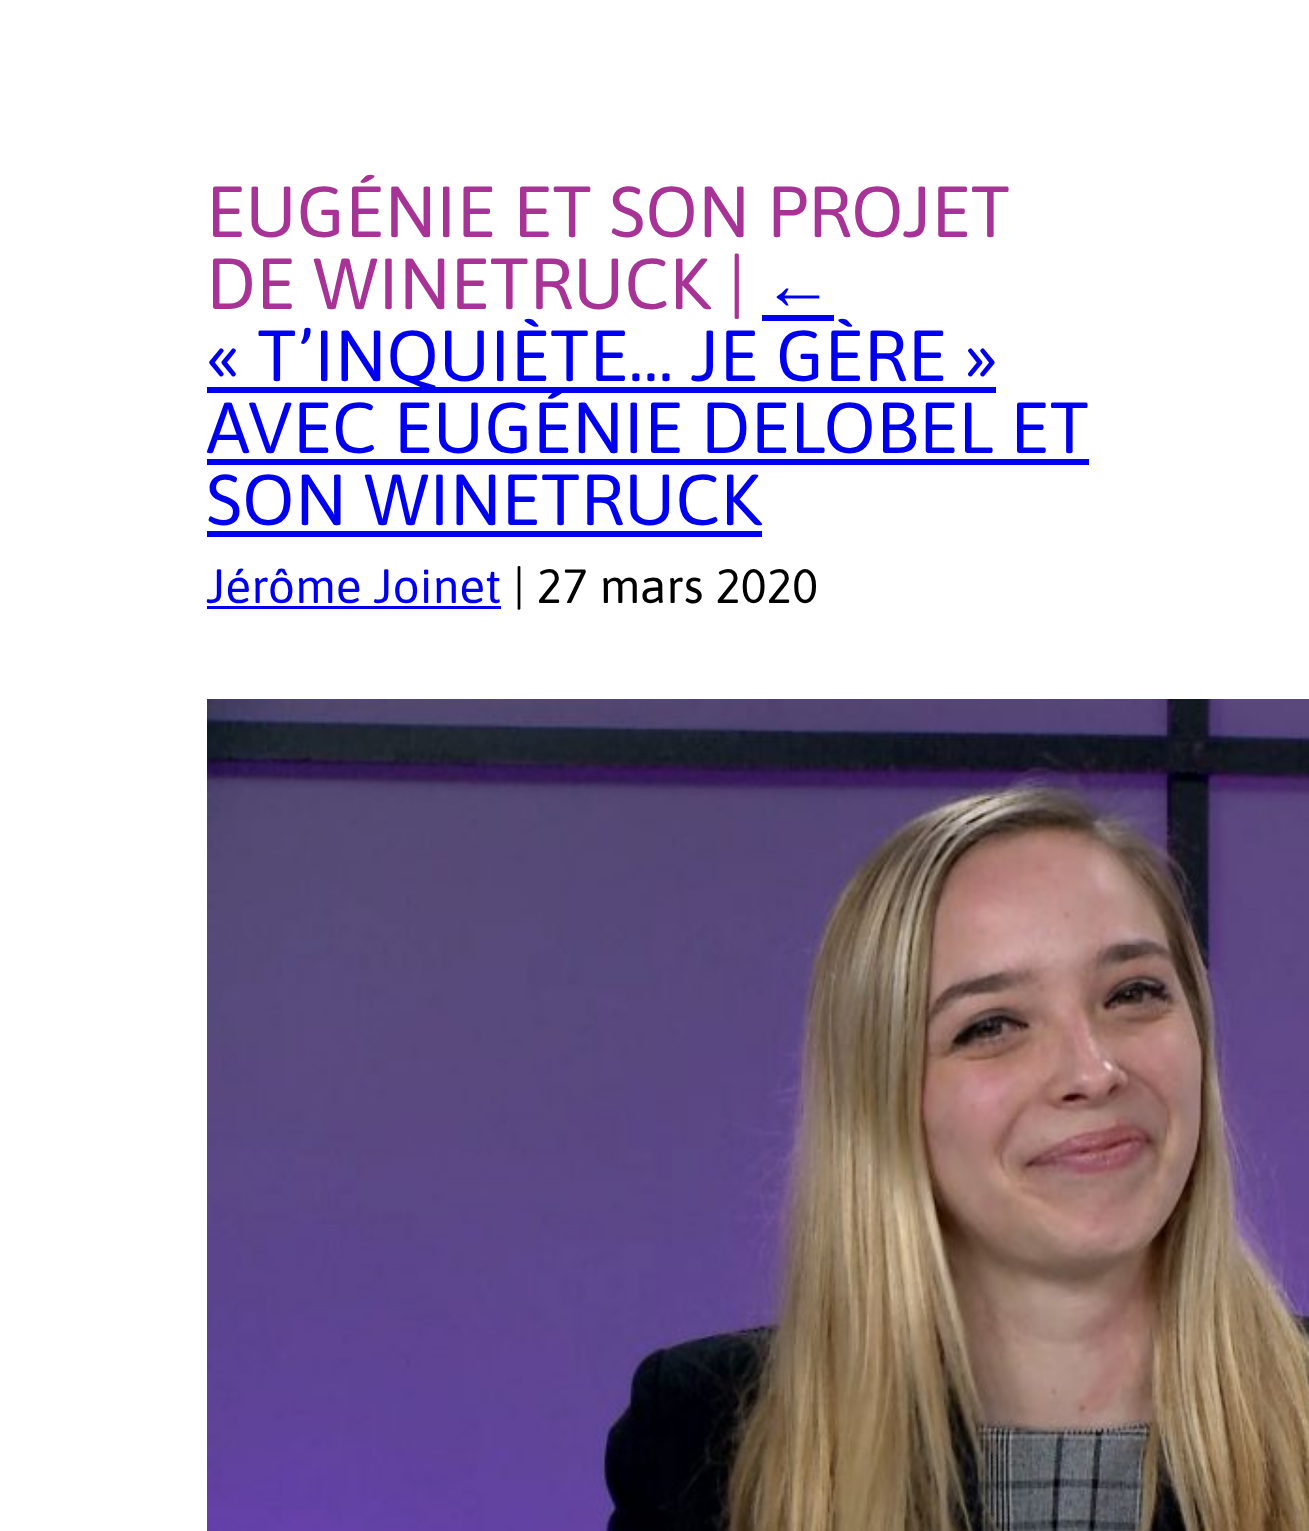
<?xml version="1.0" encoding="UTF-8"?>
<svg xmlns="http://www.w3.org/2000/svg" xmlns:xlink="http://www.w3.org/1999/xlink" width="1309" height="1531">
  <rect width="100%" height="100%" fill="#ffffff" />
  <rect x="762" y="315" width="72" height="6" fill="#0000ee" />
  <rect x="207" y="387" width="789" height="6" fill="#0000ee" />
  <rect x="207" y="459" width="882" height="6" fill="#0000ee" />
  <rect x="207" y="531" width="555" height="6" fill="#0000ee" />
  <rect x="207" y="606" width="294" height="3" fill="#0000ee" />
  <image x="207" y="699" width="1102" height="832" xlink:href="image1.png" />
  <text x="206" y="237" style="font-family: Asap; font-size: 72px; fill: #a73396">EUGÉNIE ET SON PROJET</text>
  <text x="206" y="309" style="font-family: Asap; font-size: 72px; fill: #a73396">DE WINETRUCK |</text>
  <text x="762" y="309" style="font-family: Liberation Sans; font-size: 72px; fill: #0000ee">←</text>
  <text x="206" y="381" style="font-family: Asap; font-size: 72px; fill: #0000ee">« T’INQUIÈTE… JE GÈRE »</text>
  <text x="206" y="453" style="font-family: Asap; font-size: 72px; fill: #0000ee">AVEC EUGÉNIE DELOBEL ET</text>
  <text x="206" y="525" style="font-family: Asap; font-size: 72px; fill: #0000ee">SON WINETRUCK</text>
  <text x="206" y="603" style="font-family: Asap; font-size: 48px; fill: #0000ee">Jérôme Joinet</text>
  <text x="513" y="603" style="font-family: Asap; font-size: 48px; fill: #000000">| 27 mars 2020</text>
</svg>
